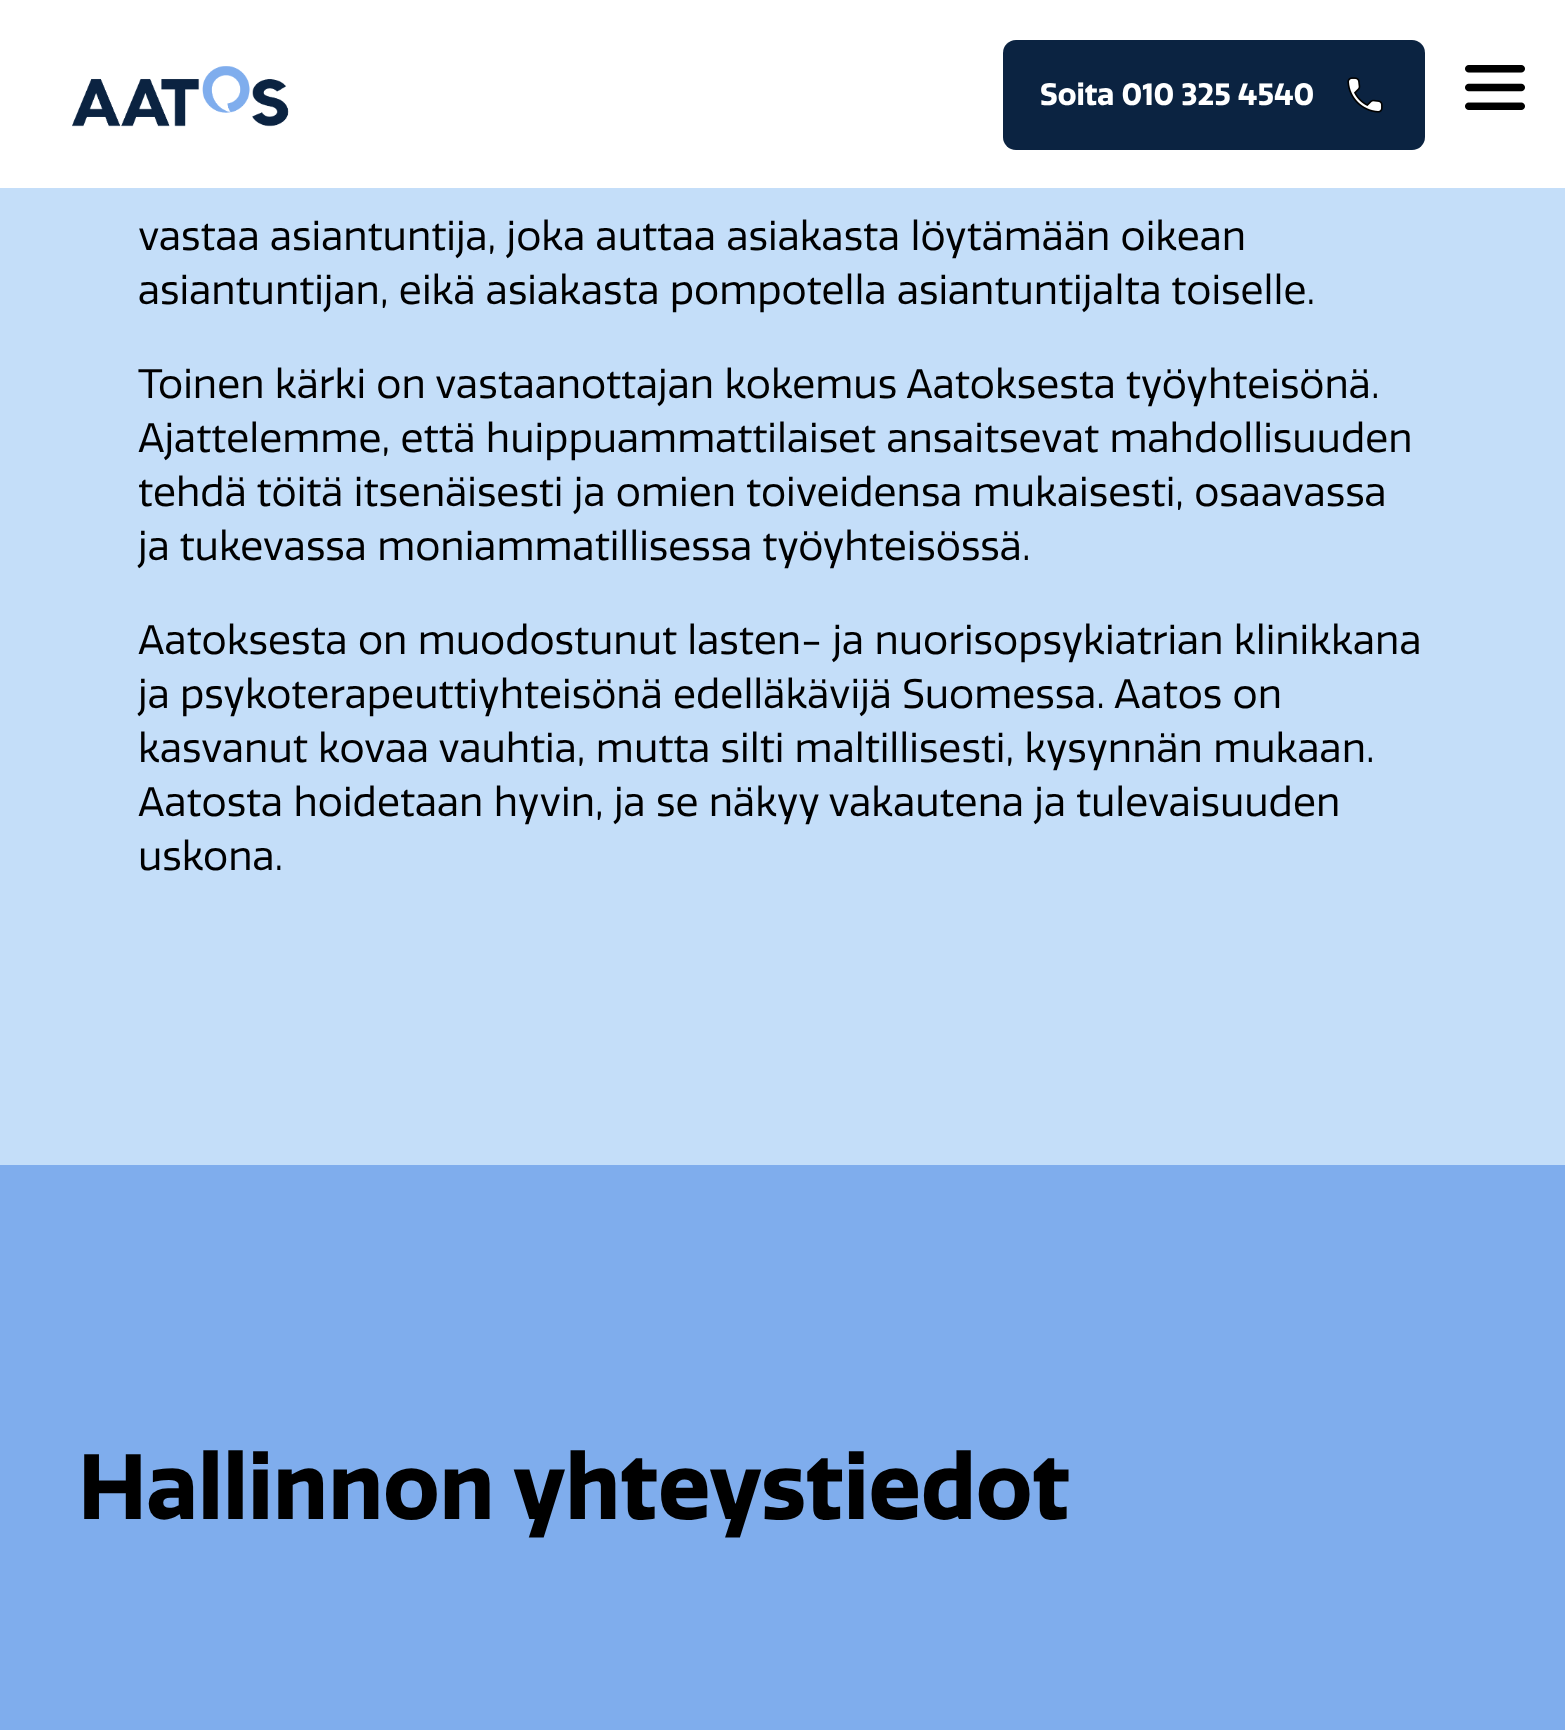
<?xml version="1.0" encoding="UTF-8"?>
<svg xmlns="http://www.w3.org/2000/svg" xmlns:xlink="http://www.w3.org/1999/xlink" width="1565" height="1730">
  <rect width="100%" height="100%" fill="#c4def9" />
  <rect width="1565" height="188" fill="#ffffff" />
  <image x="72" y="66" width="217" height="61" xlink:href="image1.png" />
  <rect x="1003" y="40" width="422" height="110" rx="13" fill="#0b2341" />
  <image x="1347" y="77" width="36" height="36" xlink:href="image2.png" />
  <image x="1465" y="65" width="60" height="45" xlink:href="image3.png" />
  <rect y="1165" width="1565" height="565" fill="#7faded" />
  <text x="1040" y="105" style="font-family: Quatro; font-size: 30px; font-weight: bold; fill: #ffffff">Soita 010 325 4540</text>
  <text x="138" y="250" style="font-family: Quatro; font-size: 40px; fill: #000000">vastaa asiantuntija, joka auttaa asiakasta löytämään oikean</text>
  <text x="138" y="304" style="font-family: Quatro; font-size: 40px; fill: #000000">asiantuntijan, eikä asiakasta pompotella asiantuntijalta toiselle.</text>
  <text x="138" y="398" style="font-family: Quatro; font-size: 40px; fill: #000000">Toinen kärki on vastaanottajan kokemus Aatoksesta työyhteisönä.</text>
  <text x="138" y="452" style="font-family: Quatro; font-size: 40px; fill: #000000">Ajattelemme, että huippuammattilaiset ansaitsevat mahdollisuuden</text>
  <text x="138" y="506" style="font-family: Quatro; font-size: 40px; fill: #000000">tehdä töitä itsenäisesti ja omien toiveidensa mukaisesti, osaavassa</text>
  <text x="138" y="560" style="font-family: Quatro; font-size: 40px; fill: #000000">ja tukevassa moniammatillisessa työyhteisössä.</text>
  <text x="138" y="654" style="font-family: Quatro; font-size: 40px; fill: #000000">Aatoksesta on muodostunut lasten- ja nuorisopsykiatrian klinikkana</text>
  <text x="138" y="708" style="font-family: Quatro; font-size: 40px; fill: #000000">ja psykoterapeuttiyhteisönä edelläkävijä Suomessa. Aatos on</text>
  <text x="138" y="762" style="font-family: Quatro; font-size: 40px; fill: #000000">kasvanut kovaa vauhtia, mutta silti maltillisesti, kysynnän mukaan.</text>
  <text x="138" y="816" style="font-family: Quatro; font-size: 40px; fill: #000000">Aatosta hoidetaan hyvin, ja se näkyy vakautena ja tulevaisuuden</text>
  <text x="138" y="870" style="font-family: Quatro; font-size: 40px; fill: #000000">uskona.</text>
  <text x="78" y="1519" style="font-family: Quatro; font-size: 90px; font-weight: bold; fill: #000000">Hallinnon yhteystiedot</text>
</svg>
